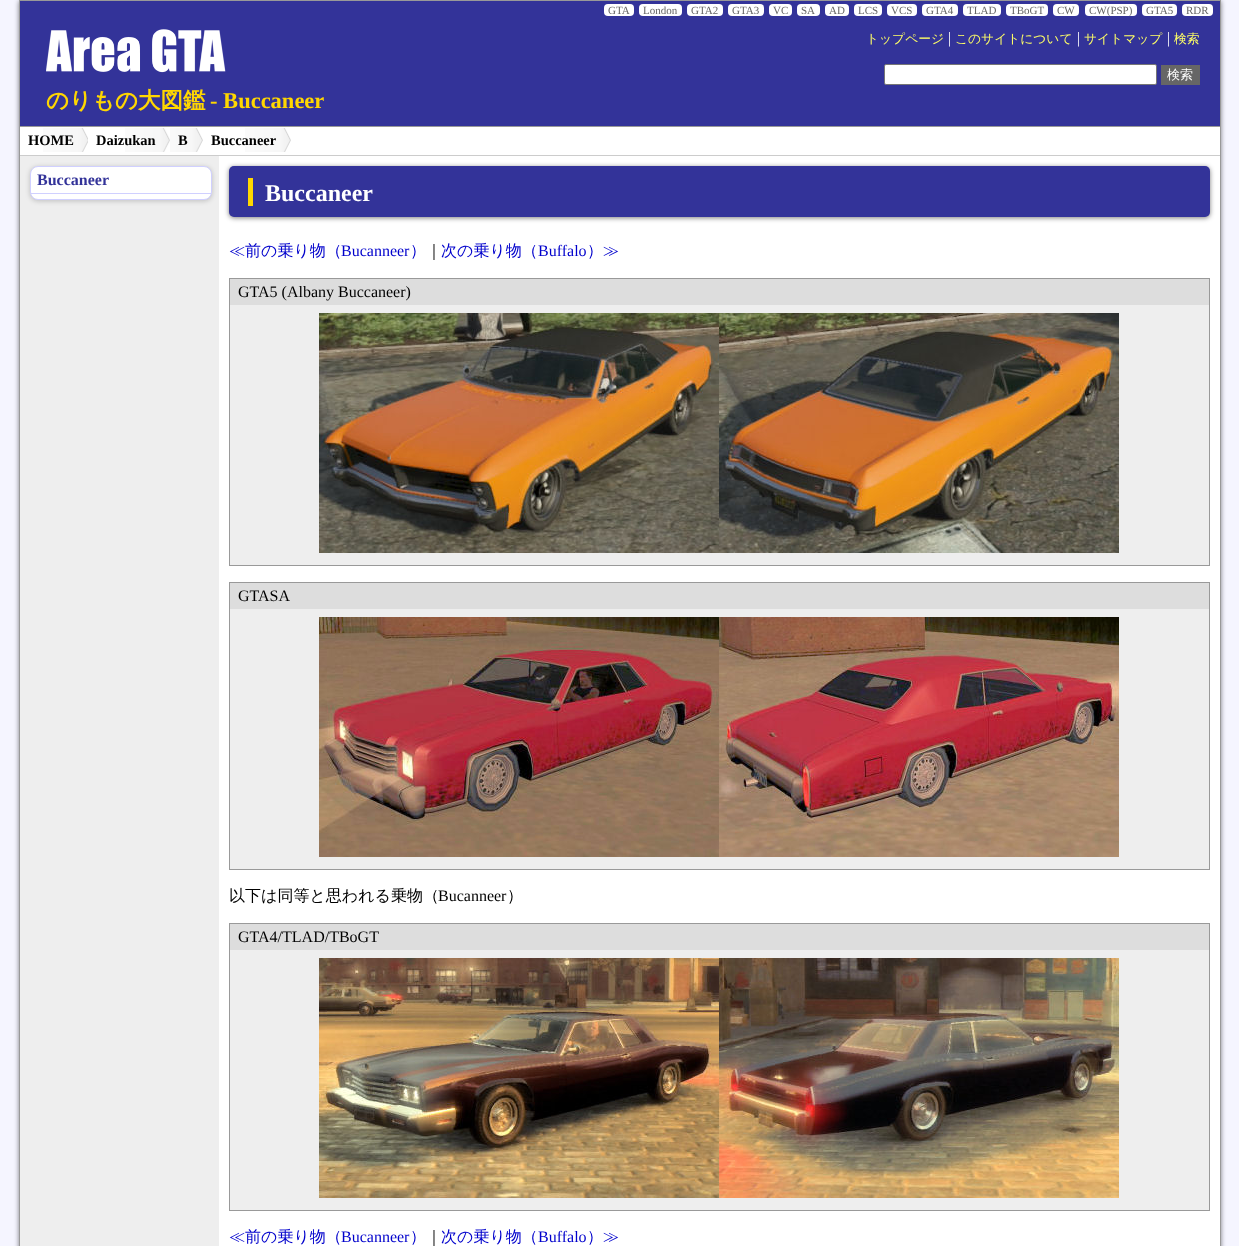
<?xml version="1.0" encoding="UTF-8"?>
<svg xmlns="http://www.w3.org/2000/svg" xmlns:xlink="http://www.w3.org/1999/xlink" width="1239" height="1246">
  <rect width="100%" height="100%" fill="#f5f5ff" />
  <rect x="19" y="1" width="1202" height="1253" fill="#000000" fill-opacity="0.5" filter="blur(2.5px)" />
  <rect x="20" y="156" width="199" height="1090" fill="#eeeeee" />
  <rect x="19.5" y="0.5" width="1201" height="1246" fill="none" stroke="#999999" />
  <rect x="20" y="1" width="1200" height="125" fill="#333399" />
  <rect x="604" y="4" width="30" height="12" rx="4" fill="#ffffff" />
  <rect x="639" y="4" width="43" height="12" rx="4" fill="#ffffff" />
  <rect x="687" y="4" width="36" height="12" rx="4" fill="#ffffff" />
  <rect x="728" y="4" width="36" height="12" rx="4" fill="#ffffff" />
  <rect x="769" y="4" width="23" height="12" rx="4" fill="#ffffff" />
  <rect x="797" y="4" width="23" height="12" rx="4" fill="#ffffff" />
  <rect x="825" y="4" width="24" height="12" rx="4" fill="#ffffff" />
  <rect x="854" y="4" width="28" height="12" rx="4" fill="#ffffff" />
  <rect x="887" y="4" width="30" height="12" rx="4" fill="#ffffff" />
  <rect x="922" y="4" width="36" height="12" rx="4" fill="#ffffff" />
  <rect x="963" y="4" width="38" height="12" rx="4" fill="#ffffff" />
  <rect x="1006" y="4" width="42" height="12" rx="4" fill="#ffffff" />
  <rect x="1053" y="4" width="26" height="12" rx="4" fill="#ffffff" />
  <rect x="1085" y="4" width="52" height="12" rx="4" fill="#ffffff" />
  <rect x="1142" y="4" width="35" height="12" rx="4" fill="#ffffff" />
  <rect x="1182" y="4" width="31" height="12" rx="4" fill="#ffffff" />
  <rect x="20" y="126" width="1200" height="1" fill="#999999" />
  <image x="46" y="29" width="180" height="44" xlink:href="image1.png" />
  <rect x="884.5" y="64.5" width="272" height="20" rx="1.5" fill="#ffffff" stroke="#767676" />
  <rect x="1161" y="65" width="39" height="20" fill="#666666" />
  <rect x="20" y="127" width="1200" height="28" fill="#ffffff" />
  <rect x="20" y="155" width="1200" height="1" fill="#cccccc" />
  <image x="43" y="128" width="45" height="24" xlink:href="image2.png" />
  <image x="125" y="128" width="45" height="24" xlink:href="image3.png" />
  <image x="170" y="128" width="33" height="24" xlink:href="image4.png" />
  <image x="245" y="128" width="46" height="24" xlink:href="image5.png" />
  <rect x="219" y="156" width="1001" height="1090" fill="#ffffff" />
  <rect x="30" y="167" width="182" height="34" rx="8" fill="#000000" fill-opacity="0.2" filter="blur(2.5px)" />
  <rect x="30.5" y="166.5" width="181" height="33" rx="7.5" fill="#ffffff" stroke="#d0d0ff" />
  <rect x="31" y="193" width="180" height="1" fill="#d0d0ff" />
  <rect x="229" y="167" width="981" height="51" rx="5" fill="#000000" fill-opacity="0.5" filter="blur(2.5px)" />
  <rect x="229" y="166" width="981" height="51" rx="5" fill="#333399" />
  <rect x="248" y="178" width="5" height="28" fill="#ffd700" />
  <rect x="230" y="279" width="979" height="26" fill="#dddddd" />
  <rect x="229" y="278" width="981" height="1" fill="#999999" />
  <rect x="1209" y="278" width="1" height="288" fill="#999999" />
  <rect x="229" y="278" width="1" height="27" fill="#999999" />
  <rect x="230" y="305" width="979" height="260" fill="#eeeeee" />
  <rect x="229" y="565" width="981" height="1" fill="#999999" />
  <rect x="229" y="305" width="1" height="261" fill="#999999" />
  <image x="319" y="313" width="400" height="240" xlink:href="image6.png" />
  <image x="719" y="313" width="400" height="240" xlink:href="image7.png" />
  <rect x="230" y="583" width="979" height="26" fill="#dddddd" />
  <rect x="229" y="582" width="981" height="1" fill="#999999" />
  <rect x="1209" y="582" width="1" height="288" fill="#999999" />
  <rect x="229" y="582" width="1" height="27" fill="#999999" />
  <rect x="230" y="609" width="979" height="260" fill="#eeeeee" />
  <rect x="229" y="869" width="981" height="1" fill="#999999" />
  <rect x="229" y="609" width="1" height="261" fill="#999999" />
  <image x="319" y="617" width="400" height="240" xlink:href="image8.png" />
  <image x="719" y="617" width="400" height="240" xlink:href="image9.png" />
  <rect x="230" y="924" width="979" height="26" fill="#dddddd" />
  <rect x="229" y="923" width="981" height="1" fill="#999999" />
  <rect x="1209" y="923" width="1" height="288" fill="#999999" />
  <rect x="229" y="923" width="1" height="27" fill="#999999" />
  <rect x="230" y="950" width="979" height="260" fill="#eeeeee" />
  <rect x="229" y="1210" width="981" height="1" fill="#999999" />
  <rect x="229" y="950" width="1" height="261" fill="#999999" />
  <image x="319" y="958" width="400" height="240" xlink:href="image10.png" />
  <image x="719" y="958" width="400" height="240" xlink:href="image11.png" />
  <text x="608" y="14" style="font-family: Liberation Serif; font-size: 11px; fill: #666666">GTA</text>
  <text x="643" y="14" style="font-family: Liberation Serif; font-size: 11px; fill: #666666">London</text>
  <text x="691" y="14" style="font-family: Liberation Serif; font-size: 11px; fill: #666666">GTA2</text>
  <text x="732" y="14" style="font-family: Liberation Serif; font-size: 11px; fill: #666666">GTA3</text>
  <text x="773" y="14" style="font-family: Liberation Serif; font-size: 11px; fill: #666666">VC</text>
  <text x="801" y="14" style="font-family: Liberation Serif; font-size: 11px; fill: #666666">SA</text>
  <text x="829" y="14" style="font-family: Liberation Serif; font-size: 11px; fill: #666666">AD</text>
  <text x="858" y="14" style="font-family: Liberation Serif; font-size: 11px; fill: #666666">LCS</text>
  <text x="891" y="14" style="font-family: Liberation Serif; font-size: 11px; fill: #666666">VCS</text>
  <text x="926" y="14" style="font-family: Liberation Serif; font-size: 11px; fill: #666666">GTA4</text>
  <text x="967" y="14" style="font-family: Liberation Serif; font-size: 11px; fill: #666666">TLAD</text>
  <text x="1010" y="14" style="font-family: Liberation Serif; font-size: 11px; fill: #666666">TBoGT</text>
  <text x="1057" y="14" style="font-family: Liberation Serif; font-size: 11px; fill: #666666">CW</text>
  <text x="1089" y="14" style="font-family: Liberation Serif; font-size: 11px; fill: #666666">CW(PSP)</text>
  <text x="1146" y="14" style="font-family: Liberation Serif; font-size: 11px; fill: #666666">GTA5</text>
  <text x="1186" y="14" style="font-family: Liberation Serif; font-size: 11px; fill: #666666">RDR</text>
  <text x="866" y="43" style="font-family: WenQuanYi Zen Hei; font-size: 12.75px; font-weight: 500; fill: #ffff66">トップページ</text>
  <text x="948" y="43" style="font-family: Liberation Serif; font-size: 16px; fill: #ffffff">|</text>
  <text x="955" y="43" style="font-family: WenQuanYi Zen Hei; font-size: 12.75px; font-weight: 500; fill: #ffff66">このサイトについて</text>
  <text x="1077" y="43" style="font-family: Liberation Serif; font-size: 16px; fill: #ffffff">|</text>
  <text x="1084" y="43" style="font-family: WenQuanYi Zen Hei; font-size: 12.75px; font-weight: 500; fill: #ffff66">サイトマップ</text>
  <text x="1167" y="43" style="font-family: Liberation Serif; font-size: 16px; fill: #ffffff">|</text>
  <text x="1174" y="43" style="font-family: WenQuanYi Zen Hei; font-size: 12.75px; font-weight: 500; fill: #ffff66">検索</text>
  <text x="1167" y="79" style="font-family: WenQuanYi Zen Hei; font-size: 13px; font-weight: 500; fill: #ffffff">検索</text>
  <text x="46" y="108" style="font-family: WenQuanYi Zen Hei; font-size: 22.5px; font-weight: bold; fill: #ffd700">のりもの大図鑑</text>
  <text x="210" y="108" style="font-family: Liberation Serif; font-size: 22.5px; font-weight: bold; fill: #ffd700">- Buccaneer</text>
  <text x="28" y="145" style="font-family: Liberation Serif; font-size: 14.5px; font-weight: bold; fill: #000000">HOME</text>
  <text x="96" y="145" style="font-family: Liberation Serif; font-size: 14.5px; font-weight: bold; fill: #000000">Daizukan</text>
  <text x="178" y="145" style="font-family: Liberation Serif; font-size: 14.5px; font-weight: bold; fill: #000000">B</text>
  <text x="211" y="145" style="font-family: Liberation Serif; font-size: 14.5px; font-weight: bold; fill: #000000">Buccaneer</text>
  <text x="37" y="185" style="font-family: Liberation Serif; font-size: 16px; font-weight: bold; fill: #333399">Buccaneer</text>
  <text x="265" y="201" style="font-family: Liberation Serif; font-size: 24px; font-weight: bold; fill: #ffffff">Buccaneer</text>
  <text x="229" y="256" style="font-family: WenQuanYi Zen Hei; font-size: 16px; font-weight: 500; fill: #0000cc">≪前の乗り物（</text>
  <text x="341" y="256" style="font-family: Liberation Serif; font-size: 16px; fill: #0000cc">Bucanneer</text>
  <text x="410" y="256" style="font-family: WenQuanYi Zen Hei; font-size: 16px; font-weight: 500; fill: #0000cc">）</text>
  <text x="426" y="256" style="font-family: WenQuanYi Zen Hei; font-size: 16px; font-weight: 500; fill: #000000">｜</text>
  <text x="441" y="256" style="font-family: WenQuanYi Zen Hei; font-size: 16px; font-weight: 500; fill: #0000cc">次の乗り物（</text>
  <text x="538" y="256" style="font-family: Liberation Serif; font-size: 16px; fill: #0000cc">Buffalo</text>
  <text x="587" y="256" style="font-family: WenQuanYi Zen Hei; font-size: 16px; font-weight: 500; fill: #0000cc">）≫</text>
  <text x="238" y="297" style="font-family: Liberation Serif; font-size: 16px; fill: #000000">GTA5 (Albany Buccaneer)</text>
  <text x="238" y="601" style="font-family: Liberation Serif; font-size: 16px; fill: #000000">GTASA</text>
  <text x="229" y="901" style="font-family: WenQuanYi Zen Hei; font-size: 16px; font-weight: 500; fill: #000000">以下は同等と思われる乗物（</text>
  <text x="438" y="901" style="font-family: Liberation Serif; font-size: 16px; fill: #000000">Bucanneer</text>
  <text x="507" y="901" style="font-family: WenQuanYi Zen Hei; font-size: 16px; font-weight: 500; fill: #000000">）</text>
  <text x="238" y="942" style="font-family: Liberation Serif; font-size: 16px; fill: #000000">GTA4/TLAD/TBoGT</text>
  <text x="229" y="1242" style="font-family: WenQuanYi Zen Hei; font-size: 16px; font-weight: 500; fill: #0000cc">≪前の乗り物（</text>
  <text x="341" y="1242" style="font-family: Liberation Serif; font-size: 16px; fill: #0000cc">Bucanneer</text>
  <text x="410" y="1242" style="font-family: WenQuanYi Zen Hei; font-size: 16px; font-weight: 500; fill: #0000cc">）</text>
  <text x="426" y="1242" style="font-family: WenQuanYi Zen Hei; font-size: 16px; font-weight: 500; fill: #000000">｜</text>
  <text x="441" y="1242" style="font-family: WenQuanYi Zen Hei; font-size: 16px; font-weight: 500; fill: #0000cc">次の乗り物（</text>
  <text x="538" y="1242" style="font-family: Liberation Serif; font-size: 16px; fill: #0000cc">Buffalo</text>
  <text x="587" y="1242" style="font-family: WenQuanYi Zen Hei; font-size: 16px; font-weight: 500; fill: #0000cc">）≫</text>
</svg>
